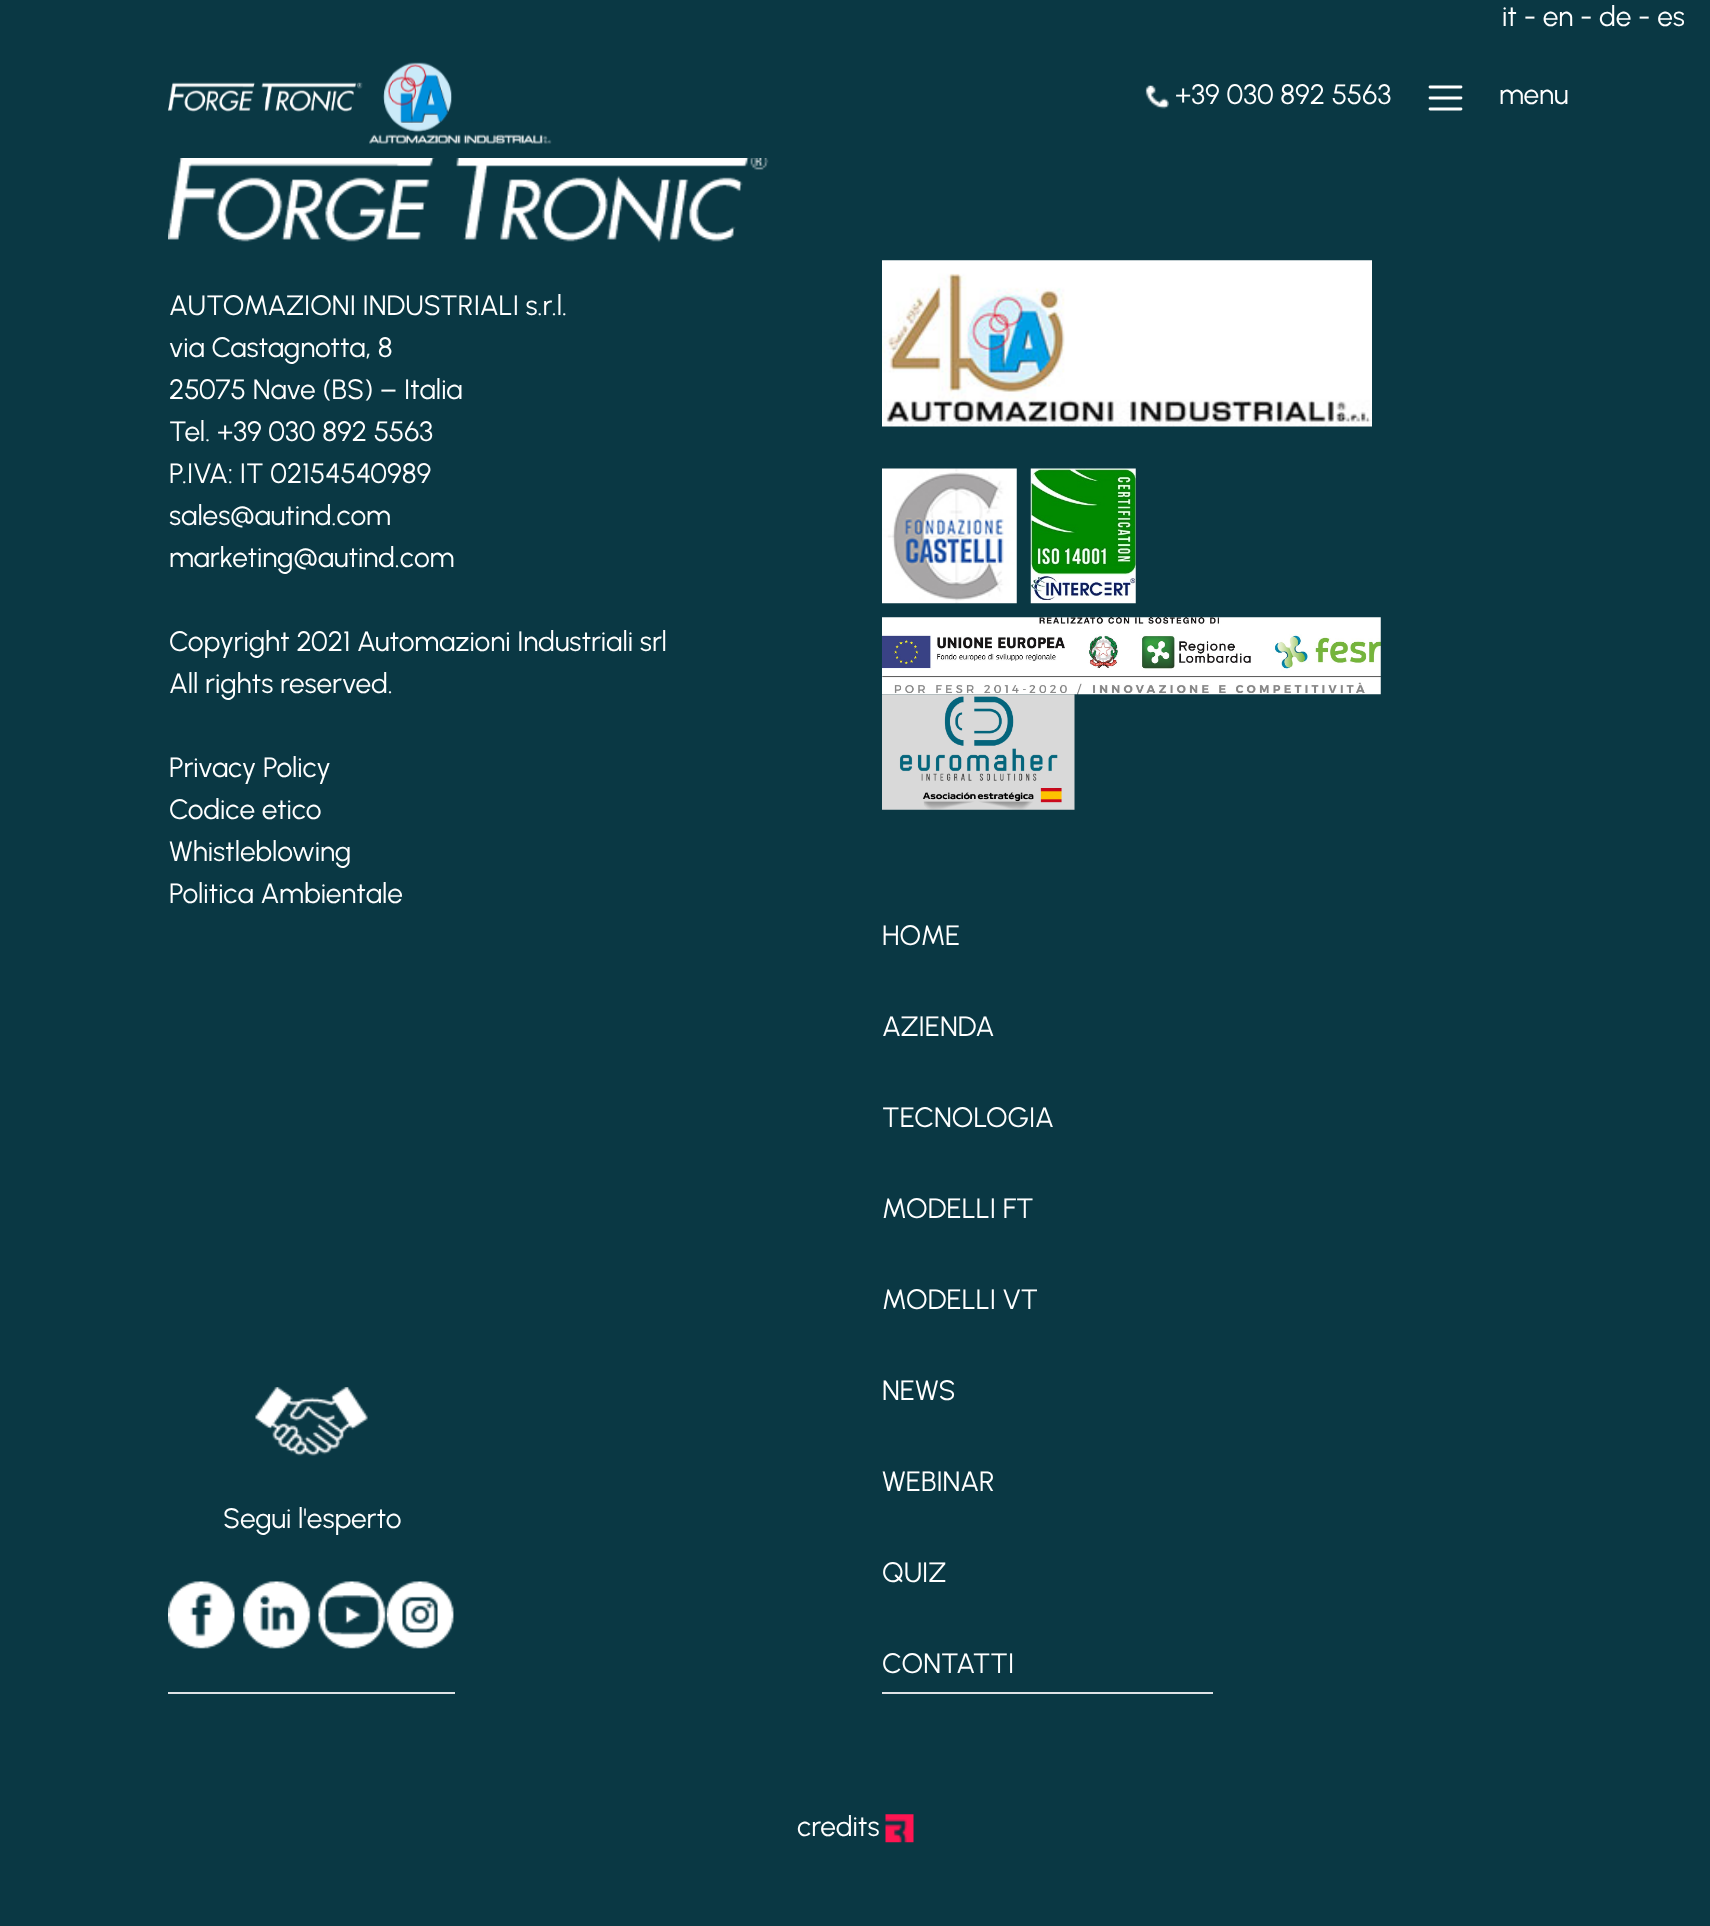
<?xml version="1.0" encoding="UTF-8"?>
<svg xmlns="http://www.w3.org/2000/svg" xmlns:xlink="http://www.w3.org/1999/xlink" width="1710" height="1926">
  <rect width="100%" height="100%" fill="#0a3844" />
  <image x="168" y="82" width="195" height="30" xlink:href="image1.png" />
  <image x="369" y="62" width="183" height="82" xlink:href="image2.png" />
  <image x="1145" y="85" width="24" height="24" xlink:href="image3.png" />
  <path d="M 1430 87 h 31 m -31 11 h 31 m -31 11 h 31" fill="none" stroke="#ffffff" stroke-width="2.8" stroke-linecap="round" />
  <image x="168" y="158" width="601" height="85" xlink:href="image4.png" />
  <image x="882" y="260" width="490" height="167" xlink:href="image5.png" />
  <image x="882" y="468" width="135" height="136" xlink:href="image6.png" />
  <image x="1030" y="468" width="106" height="136" xlink:href="image7.png" />
  <image x="882" y="617" width="499" height="78" xlink:href="image8.png" />
  <image x="882" y="694" width="193" height="116" xlink:href="image9.png" />
  <rect x="168" y="1692" width="287" height="2" fill="#dee2e6" />
  <image x="255" y="1387" width="113" height="69" xlink:href="image10.png" />
  <image x="168" y="1581" width="67" height="68" xlink:href="image11.png" />
  <image x="243" y="1581" width="68" height="68" xlink:href="image12.png" />
  <image x="318" y="1581" width="68" height="68" xlink:href="image13.png" />
  <image x="386" y="1581" width="68" height="68" xlink:href="image14.png" />
  <rect x="882" y="1692" width="331" height="2" fill="#dee2e6" />
  <image x="885" y="1814" width="29" height="29" xlink:href="image15.png" />
  <text x="1502" y="26" style="font-family: Urbanist; font-size: 28px; fill: #ffffff">it - en - de - es</text>
  <text x="1175" y="104" style="font-family: Urbanist; font-size: 28px; fill: #ffffff">+39 030 892 5563</text>
  <text x="1499" y="104" style="font-family: Urbanist; font-size: 28px; fill: #ffffff">menu</text>
  <text x="169" y="315" style="font-family: Urbanist; font-size: 28px; fill: #ffffff">AUTOMAZIONI INDUSTRIALI s.r.l.</text>
  <text x="169" y="357" style="font-family: Urbanist; font-size: 28px; fill: #ffffff">via Castagnotta, 8</text>
  <text x="169" y="399" style="font-family: Urbanist; font-size: 28px; fill: #ffffff">25075 Nave (BS) – Italia</text>
  <text x="169" y="441" style="font-family: Urbanist; font-size: 28px; fill: #ffffff">Tel. +39 030 892 5563</text>
  <text x="169" y="483" style="font-family: Urbanist; font-size: 28px; fill: #ffffff">P.IVA: IT 02154540989</text>
  <text x="169" y="525" style="font-family: Urbanist; font-size: 28px; fill: #ffffff">sales@autind.com</text>
  <text x="169" y="567" style="font-family: Urbanist; font-size: 28px; fill: #ffffff">marketing@autind.com</text>
  <text x="169" y="651" style="font-family: Urbanist; font-size: 28px; fill: #ffffff">Copyright 2021 Automazioni Industriali srl</text>
  <text x="169" y="693" style="font-family: Urbanist; font-size: 28px; fill: #ffffff">All rights reserved.</text>
  <text x="169" y="777" style="font-family: Urbanist; font-size: 28px; fill: #ffffff">Privacy Policy</text>
  <text x="169" y="819" style="font-family: Urbanist; font-size: 28px; fill: #ffffff">Codice etico</text>
  <text x="169" y="861" style="font-family: Urbanist; font-size: 28px; fill: #ffffff">Whistleblowing</text>
  <text x="169" y="903" style="font-family: Urbanist; font-size: 28px; fill: #ffffff">Politica Ambientale</text>
  <text x="223" y="1528" style="font-family: Urbanist; font-size: 28px; fill: #ffffff">Segui l'esperto</text>
  <text x="882" y="945" style="font-family: Urbanist; font-size: 28px; fill: #ffffff">HOME</text>
  <text x="882" y="1036" style="font-family: Urbanist; font-size: 28px; fill: #ffffff">AZIENDA</text>
  <text x="882" y="1127" style="font-family: Urbanist; font-size: 28px; fill: #ffffff">TECNOLOGIA</text>
  <text x="882" y="1218" style="font-family: Urbanist; font-size: 28px; fill: #ffffff">MODELLI FT</text>
  <text x="882" y="1309" style="font-family: Urbanist; font-size: 28px; fill: #ffffff">MODELLI VT</text>
  <text x="882" y="1400" style="font-family: Urbanist; font-size: 28px; fill: #ffffff">NEWS</text>
  <text x="882" y="1491" style="font-family: Urbanist; font-size: 28px; fill: #ffffff">WEBINAR</text>
  <text x="882" y="1582" style="font-family: Urbanist; font-size: 28px; fill: #ffffff">QUIZ</text>
  <text x="882" y="1673" style="font-family: Urbanist; font-size: 28px; fill: #ffffff">CONTATTI</text>
  <text x="797" y="1836" style="font-family: Urbanist; font-size: 28px; fill: #ffffff">credits</text>
</svg>
